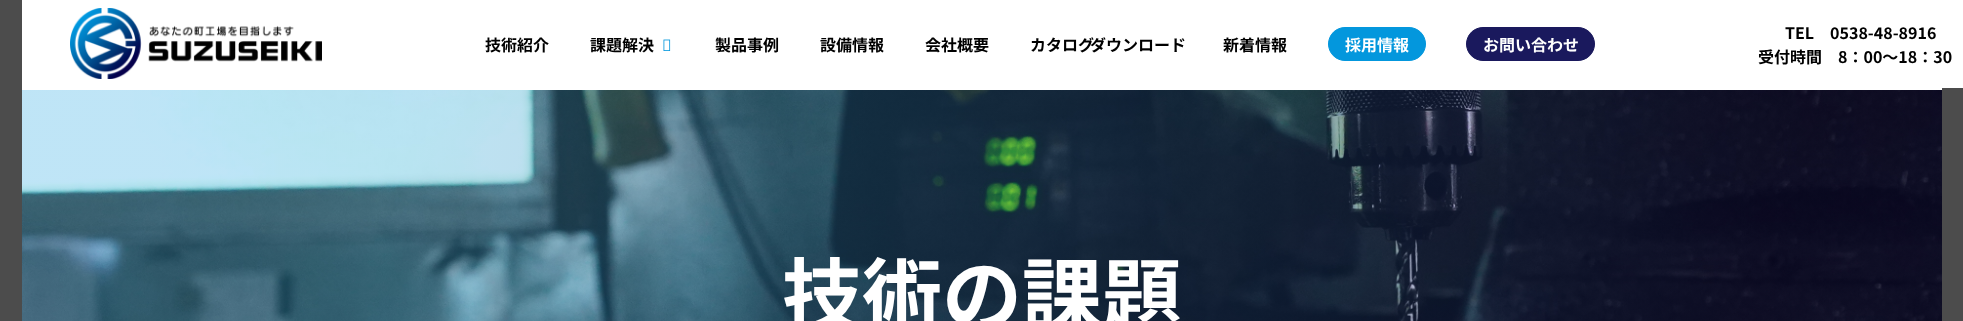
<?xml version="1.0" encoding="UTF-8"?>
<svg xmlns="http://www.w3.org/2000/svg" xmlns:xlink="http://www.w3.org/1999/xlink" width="1963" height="321">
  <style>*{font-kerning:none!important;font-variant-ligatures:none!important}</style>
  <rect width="100%" height="100%" fill="#4c4c4c" />
  <rect x="22" y="88" width="1920" height="2" fill="#ffffff" />
  <rect x="22" width="1941" height="88" fill="#ffffff" />
  <image x="70" y="8" width="252" height="71" xlink:href="image1.png" />
  <image x="663" y="39" width="8" height="12" xlink:href="image2.png" />
  <rect x="1328.5" y="27.5" width="97" height="33" rx="16.5" fill="#0397dd" stroke="#0397dd" />
  <rect x="1466.5" y="27.5" width="128" height="33" rx="16.5" fill="#1a195d" stroke="#1a195d" />
  <image x="22" y="90" width="1920" height="231" xlink:href="image3.png" />
  <text x="485" y="51" style="font-family: Noto Sans JP; font-size: 16px; font-weight: bold; fill: #000000">技術紹介</text>
  <text x="590" y="51" style="font-family: Noto Sans JP; font-size: 16px; font-weight: bold; fill: #000000">課題解決</text>
  <text x="715" y="51" style="font-family: Noto Sans JP; font-size: 16px; font-weight: bold; fill: #000000">製品事例</text>
  <text x="820" y="51" style="font-family: Noto Sans JP; font-size: 16px; font-weight: bold; fill: #000000">設備情報</text>
  <text x="925" y="51" style="font-family: Noto Sans JP; font-size: 16px; font-weight: bold; fill: #000000">会社概要</text>
  <text x="1030" y="51" style="font-family: Noto Sans JP; font-size: 16px; font-weight: bold; fill: #000000">カタログ</text>
  <text x="1090" y="51" style="font-family: Noto Sans JP; font-size: 16px; font-weight: bold; fill: #000000">ダウンロード</text>
  <text x="1223" y="51" style="font-family: Noto Sans JP; font-size: 16px; font-weight: bold; fill: #000000">新着情報</text>
  <text x="1345" y="51" style="font-family: Noto Sans JP; font-size: 16px; font-weight: bold; fill: #ffffff">採用情報</text>
  <text x="1483" y="51" style="font-family: Noto Sans JP; font-size: 16px; font-weight: bold; fill: #ffffff">お問い合わせ</text>
  <text x="1785" y="39" style="font-family: Noto Sans JP; font-size: 16px; font-weight: bold; fill: #000000">TEL 0538-48-8916</text>
  <text x="1758" y="63" style="font-family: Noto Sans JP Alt; font-size: 16px; font-weight: bold; fill: #000000">受付時間　8：00～18：30</text>
  <text x="782" y="325" style="font-family: Noto Sans JP; font-size: 80px; font-weight: bold; fill: #ffffff">技術の課題</text>
</svg>
